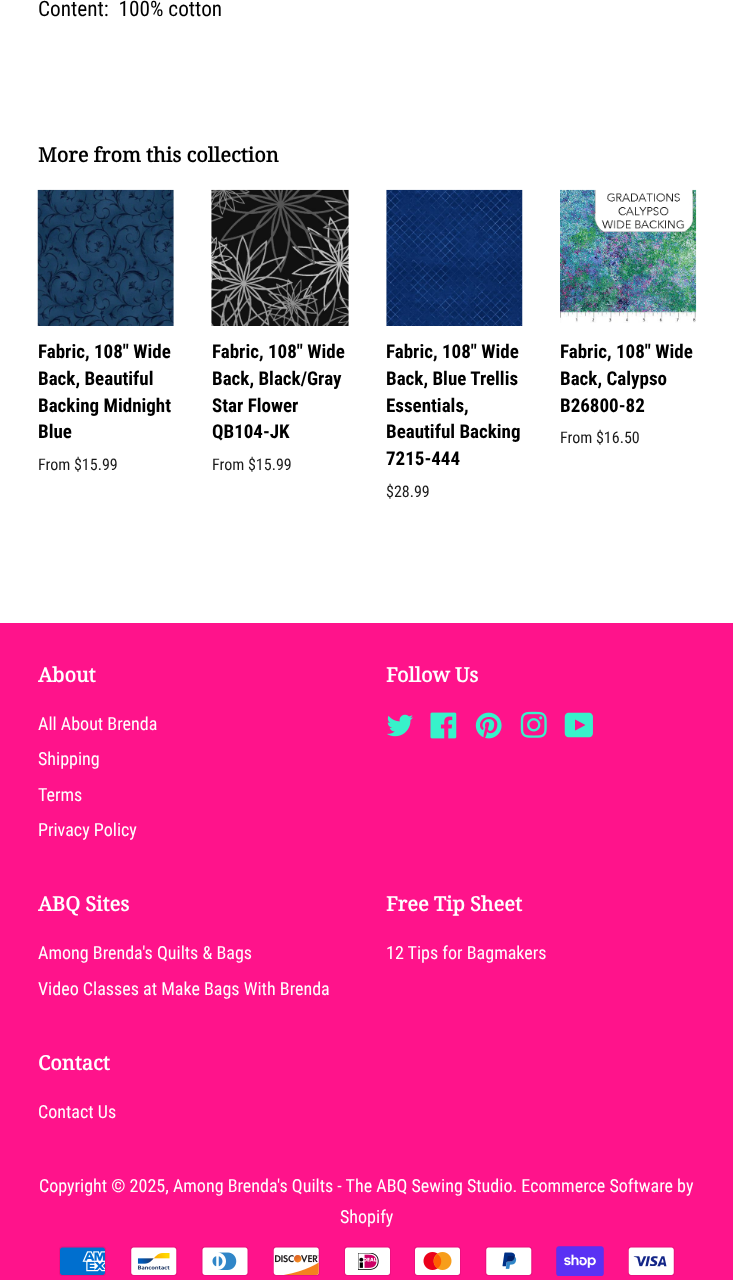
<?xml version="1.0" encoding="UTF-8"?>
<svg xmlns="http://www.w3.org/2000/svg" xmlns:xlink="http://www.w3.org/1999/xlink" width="733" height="1280">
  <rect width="100%" height="100%" fill="#ffffff" />
  <image x="37" y="189" width="137" height="137" xlink:href="image1.png" />
  <image x="211" y="189" width="138" height="137" xlink:href="image2.png" />
  <image x="386" y="189" width="137" height="137" xlink:href="image3.png" />
  <image x="560" y="189" width="137" height="134" xlink:href="image4.png" />
  <rect y="623" width="733" height="657" fill="#ff138b" />
  <image x="387" y="714" width="26" height="23" xlink:href="image5.png" />
  <image x="430" y="712" width="27" height="27" xlink:href="image6.png" />
  <image x="475" y="712" width="27" height="27" xlink:href="image7.png" />
  <image x="520" y="711" width="27" height="27" xlink:href="image8.png" />
  <image x="564" y="712" width="29" height="26" xlink:href="image9.png" />
  <image x="59" y="1246" width="47" height="30" xlink:href="image10.png" />
  <image x="130" y="1246" width="48" height="30" xlink:href="image11.png" />
  <image x="201" y="1246" width="48" height="30" xlink:href="image12.png" />
  <image x="273" y="1246" width="47" height="30" xlink:href="image13.png" />
  <image x="344" y="1246" width="47" height="30" xlink:href="image14.png" />
  <image x="414" y="1246" width="47" height="30" xlink:href="image15.png" />
  <image x="485" y="1246" width="48" height="30" xlink:href="image16.png" />
  <image x="556" y="1246" width="48" height="30" xlink:href="image17.png" />
  <image x="628" y="1246" width="47" height="30" xlink:href="image18.png" />
  <text x="38" y="16" style="font-family: Roboto Condensed; font-size: 21.25px; fill: #000000" xml:space="preserve">Content:  100% cotton</text>
  <text x="38" y="162" style="font-family: Noto Serif; font-size: 20px; font-weight: bold; fill: #000000">More from this collection</text>
  <text x="38" y="358" style="font-family: Roboto Condensed; font-size: 19px; font-weight: bold; fill: #000000">Fabric, 108" Wide</text>
  <text x="38" y="385" style="font-family: Roboto Condensed; font-size: 19px; font-weight: bold; fill: #000000">Back, Beautiful</text>
  <text x="38" y="412" style="font-family: Roboto Condensed; font-size: 19px; font-weight: bold; fill: #000000">Backing Midnight</text>
  <text x="38" y="438" style="font-family: Roboto Condensed; font-size: 19px; font-weight: bold; fill: #000000">Blue</text>
  <text x="38" y="470" style="font-family: Roboto Condensed; font-size: 16px; fill: #1a1a1a">From $15.99</text>
  <text x="212" y="358" style="font-family: Roboto Condensed; font-size: 19px; font-weight: bold; fill: #000000">Fabric, 108" Wide</text>
  <text x="212" y="385" style="font-family: Roboto Condensed; font-size: 19px; font-weight: bold; fill: #000000">Back, Black/Gray</text>
  <text x="212" y="412" style="font-family: Roboto Condensed; font-size: 19px; font-weight: bold; fill: #000000">Star Flower</text>
  <text x="212" y="438" style="font-family: Roboto Condensed; font-size: 19px; font-weight: bold; fill: #000000">QB104-JK</text>
  <text x="212" y="470" style="font-family: Roboto Condensed; font-size: 16px; fill: #1a1a1a">From $15.99</text>
  <text x="386" y="358" style="font-family: Roboto Condensed; font-size: 19px; font-weight: bold; fill: #000000">Fabric, 108" Wide</text>
  <text x="386" y="385" style="font-family: Roboto Condensed; font-size: 19px; font-weight: bold; fill: #000000">Back, Blue Trellis</text>
  <text x="386" y="412" style="font-family: Roboto Condensed; font-size: 19px; font-weight: bold; fill: #000000">Essentials,</text>
  <text x="386" y="438" style="font-family: Roboto Condensed; font-size: 19px; font-weight: bold; fill: #000000">Beautiful Backing</text>
  <text x="386" y="465" style="font-family: Roboto Condensed; font-size: 19px; font-weight: bold; fill: #000000">7215-444</text>
  <text x="386" y="497" style="font-family: Roboto Condensed; font-size: 16px; fill: #1a1a1a">$28.99</text>
  <text x="560" y="358" style="font-family: Roboto Condensed; font-size: 19px; font-weight: bold; fill: #000000">Fabric, 108" Wide</text>
  <text x="560" y="385" style="font-family: Roboto Condensed; font-size: 19px; font-weight: bold; fill: #000000">Back, Calypso</text>
  <text x="560" y="412" style="font-family: Roboto Condensed; font-size: 19px; font-weight: bold; fill: #000000">B26800-82</text>
  <text x="560" y="443" style="font-family: Roboto Condensed; font-size: 16px; fill: #1a1a1a">From $16.50</text>
  <text x="38" y="682" style="font-family: Noto Serif; font-size: 20px; font-weight: bold; fill: #ffffff">About</text>
  <text x="38" y="730" style="font-family: Roboto Condensed; font-size: 18.05px; fill: #ffffff">All About Brenda</text>
  <text x="38" y="765" style="font-family: Roboto Condensed; font-size: 18.05px; fill: #ffffff">Shipping</text>
  <text x="38" y="801" style="font-family: Roboto Condensed; font-size: 18.05px; fill: #ffffff">Terms</text>
  <text x="38" y="836" style="font-family: Roboto Condensed; font-size: 18.05px; fill: #ffffff">Privacy Policy</text>
  <text x="386" y="682" style="font-family: Noto Serif; font-size: 20px; font-weight: bold; fill: #ffffff">Follow Us</text>
  <text x="38" y="911" style="font-family: Noto Serif; font-size: 20px; font-weight: bold; fill: #ffffff">ABQ Sites</text>
  <text x="38" y="959" style="font-family: Roboto Condensed; font-size: 18.05px; fill: #ffffff">Among Brenda's Quilts &amp; Bags</text>
  <text x="38" y="995" style="font-family: Roboto Condensed; font-size: 18.05px; fill: #ffffff">Video Classes at Make Bags With Brenda</text>
  <text x="386" y="911" style="font-family: Noto Serif; font-size: 20px; font-weight: bold; fill: #ffffff">Free Tip Sheet</text>
  <text x="386" y="959" style="font-family: Roboto Condensed; font-size: 18.05px; fill: #ffffff">12 Tips for Bagmakers</text>
  <text x="38" y="1070" style="font-family: Noto Serif; font-size: 20px; font-weight: bold; fill: #ffffff">Contact</text>
  <text x="38" y="1118" style="font-family: Roboto Condensed; font-size: 18.05px; fill: #ffffff">Contact Us</text>
  <text x="39" y="1192" style="font-family: Roboto Condensed; font-size: 18.05px; fill: #ffffff">Copyright © 2025, Among Brenda's Quilts - The ABQ Sewing Studio. Ecommerce Software by</text>
  <text x="340" y="1223" style="font-family: Roboto Condensed; font-size: 18.05px; fill: #ffffff">Shopify</text>
</svg>
